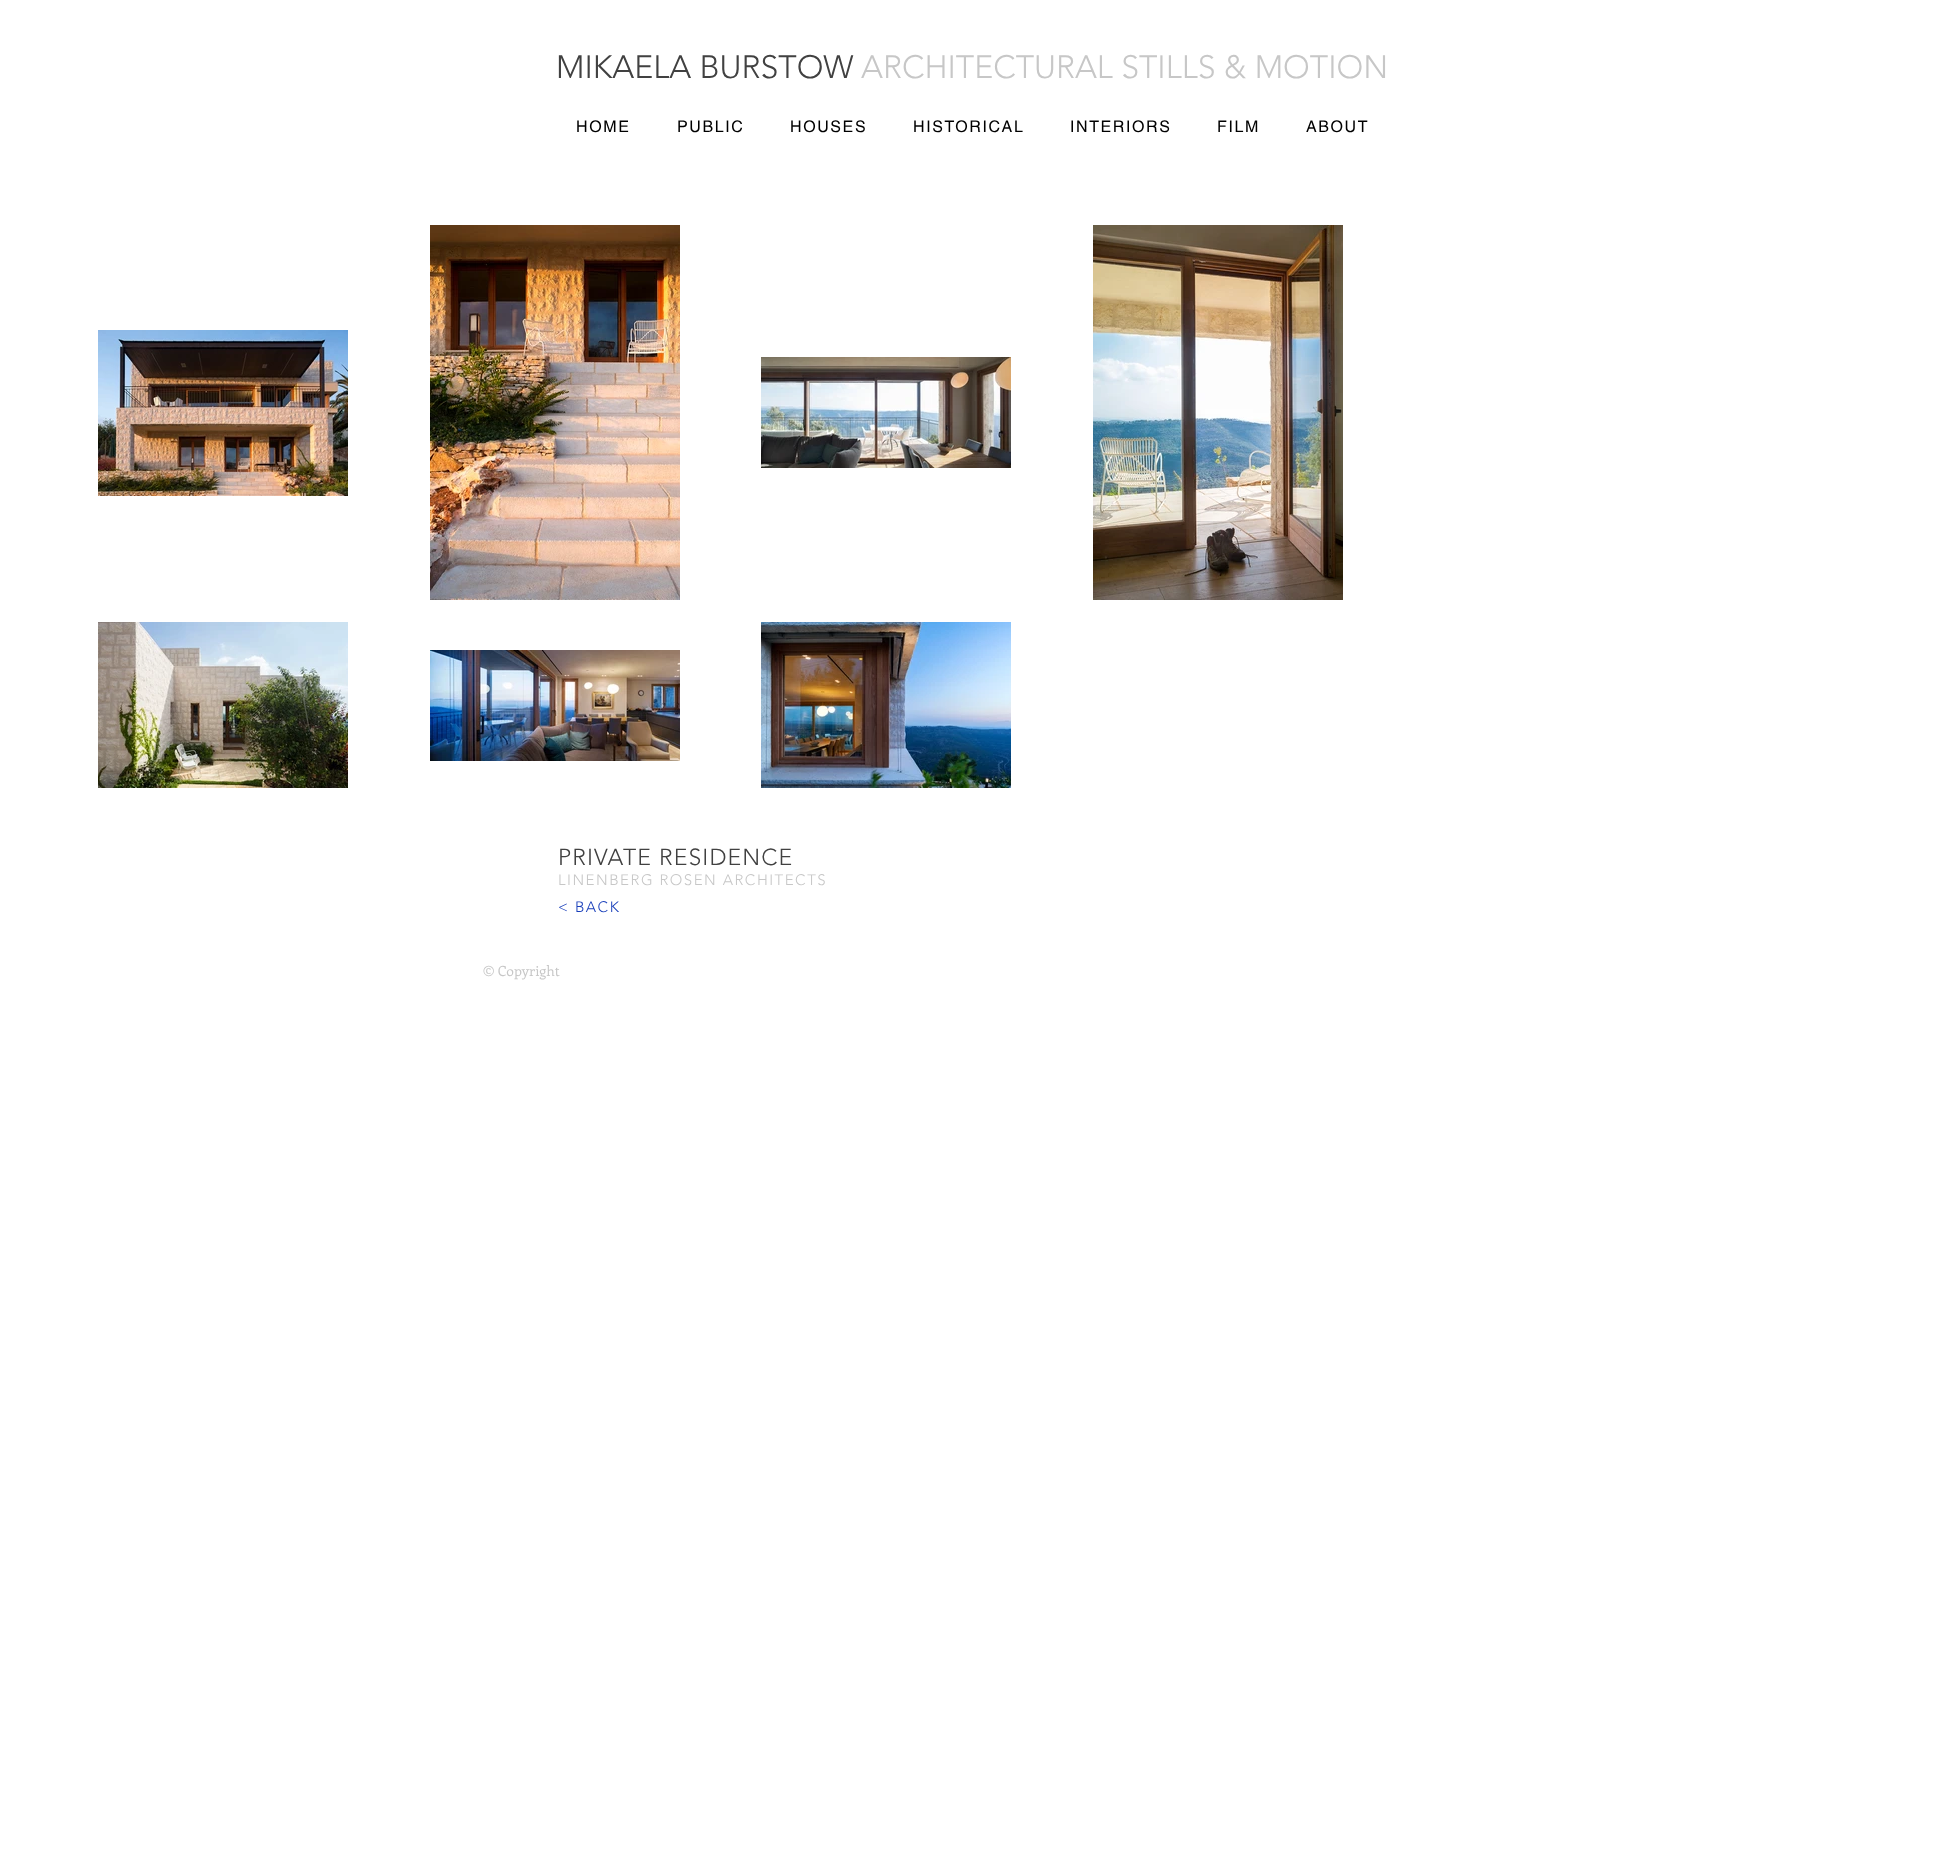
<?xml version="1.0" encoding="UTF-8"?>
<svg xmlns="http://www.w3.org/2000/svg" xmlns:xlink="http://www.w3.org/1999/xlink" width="1945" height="1857">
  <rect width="100%" height="100%" fill="#ffffff" />
  <image x="98" y="330" width="250" height="166" xlink:href="image1.png" />
  <image x="430" y="225" width="250" height="375" xlink:href="image2.png" />
  <image x="761" y="357" width="250" height="111" xlink:href="image3.png" />
  <image x="1093" y="225" width="250" height="375" xlink:href="image4.png" />
  <image x="98" y="622" width="250" height="166" xlink:href="image5.png" />
  <image x="430" y="650" width="250" height="111" xlink:href="image6.png" />
  <image x="761" y="622" width="250" height="166" xlink:href="image7.png" />
  <text x="556" y="78" style="font-family: 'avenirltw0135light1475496'; font-size: 32px; font-weight: 300; fill: #414141">MIKAELA BURSTOW</text>
  <text x="861" y="78" style="font-family: 'avenirltw0135light1475496'; font-size: 32px; font-weight: 300; fill: #c7c7c7">ARCHITECTURAL STILLS &amp; MOTION</text>
  <text x="576" y="132" style="font-family: helvetica; font-size: 16px; letter-spacing: 1.6px; fill: #000000">HOME</text>
  <text x="677" y="132" style="font-family: helvetica; font-size: 16px; letter-spacing: 1.6px; fill: #000000">PUBLIC</text>
  <text x="790" y="132" style="font-family: helvetica; font-size: 16px; letter-spacing: 1.6px; fill: #000000">HOUSES</text>
  <text x="913" y="132" style="font-family: helvetica; font-size: 16px; letter-spacing: 1.6px; fill: #000000">HISTORICAL</text>
  <text x="1070" y="132" style="font-family: helvetica; font-size: 16px; letter-spacing: 1.6px; fill: #000000">INTERIORS</text>
  <text x="1217" y="132" style="font-family: helvetica; font-size: 16px; letter-spacing: 1.6px; fill: #000000">FILM</text>
  <text x="1306" y="132" style="font-family: helvetica; font-size: 16px; letter-spacing: 1.6px; fill: #000000">ABOUT</text>
  <text x="558" y="865" style="font-family: 'avenirltw0135light1475496'; font-size: 23px; font-weight: 300; letter-spacing: 1.1px; fill: #414141">PRIVATE RESIDENCE</text>
  <text x="558" y="885" style="font-family: 'avenirltw0135light1475496'; font-size: 15px; font-weight: 300; letter-spacing: 1.5px; fill: #c7c7c7">LINENBERG ROSEN ARCHITECTS</text>
  <text x="558" y="912" style="font-family: 'avenirltw0135light1475496'; font-size: 15px; font-weight: 300; letter-spacing: 1.5px; fill: #183eba">&lt; BACK</text>
  <text x="483" y="976" style="font-family: Enriqueta; font-size: 14px; fill: #c7c7c7">© Copyright</text>
</svg>
